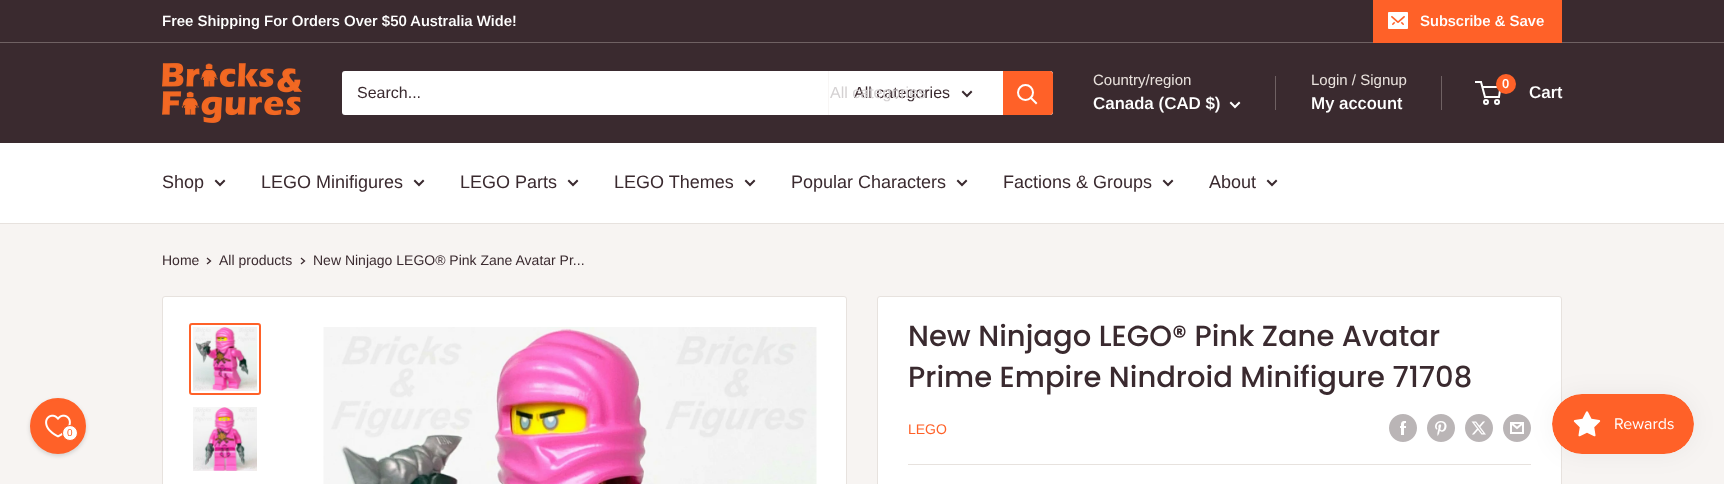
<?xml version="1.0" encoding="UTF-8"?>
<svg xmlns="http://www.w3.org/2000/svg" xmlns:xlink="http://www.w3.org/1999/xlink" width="1724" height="484">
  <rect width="100%" height="100%" fill="#f7f4f2" />
  <rect width="1724" height="42" fill="#3a2a2f" />
  <rect y="42" width="1724" height="1" fill="#6f6163" />
  <rect x="1373" width="189" height="43" fill="#ff6128" />
  <image x="1388" y="12" width="20" height="17" xlink:href="image1.png" />
  <rect y="43" width="1724" height="100" fill="#3a2a2f" />
  <image x="162" y="63" width="140" height="60" xlink:href="image2.png" />
  <rect x="342" y="71" width="711" height="44" rx="3" fill="#ffffff" />
  <rect x="828" y="71" width="1" height="44" fill="#f8f6f5" />
  <path d="M 971 92 l -4 4 l -4 -4" fill="none" stroke="#3a2a2f" stroke-width="2" stroke-linecap="square" />
  <path d="M 1003 71 h 47 c 1.5 0 3 1.5 3 3 v 38 c 0 1.5 -1.5 3 -3 3 h -47 z" fill="#ff6128" />
  <path d="M 1036 103 l -5 -5" fill="none" stroke="#ffffff" stroke-width="2" stroke-linecap="square" />
  <circle cx="1025.5" cy="92.5" r="7.5" fill="none" stroke="#ffffff" stroke-width="2" />
  <path d="M 1239 103 l -4 4 l -4 -4" fill="none" stroke="#ffffff" stroke-width="2" stroke-linecap="square" />
  <rect x="1275" y="76" width="1" height="34" fill="#6f6163" />
  <rect x="1441" y="76" width="1" height="34" fill="#6f6163" />
  <circle cx="1486" cy="102" r="2" fill="none" stroke="#ffffff" stroke-width="2" />
  <circle cx="1497" cy="102" r="2" fill="none" stroke="#ffffff" stroke-width="2" />
  <path d="M 1482.5 87 h 18 l -1.5 10 h -14 l -4 -15 h -6" fill="none" stroke="#ffffff" stroke-width="2" />
  <circle cx="1506" cy="84" r="10" fill="#ff6128" />
  <rect y="143" width="1724" height="80" fill="#ffffff" />
  <rect y="223" width="1724" height="1" fill="#e7e2de" />
  <path d="M 224 181 l -4 4 l -4 -4" fill="none" stroke="#3a2a2f" stroke-width="2" stroke-linecap="square" />
  <path d="M 423 181 l -4 4 l -4 -4" fill="none" stroke="#3a2a2f" stroke-width="2" stroke-linecap="square" />
  <path d="M 577 181 l -4 4 l -4 -4" fill="none" stroke="#3a2a2f" stroke-width="2" stroke-linecap="square" />
  <path d="M 754 181 l -4 4 l -4 -4" fill="none" stroke="#3a2a2f" stroke-width="2" stroke-linecap="square" />
  <path d="M 966 181 l -4 4 l -4 -4" fill="none" stroke="#3a2a2f" stroke-width="2" stroke-linecap="square" />
  <path d="M 1172 181 l -4 4 l -4 -4" fill="none" stroke="#3a2a2f" stroke-width="2" stroke-linecap="square" />
  <path d="M 1276 181 l -4 4 l -4 -4" fill="none" stroke="#3a2a2f" stroke-width="2" stroke-linecap="square" />
  <rect x="30" y="400" width="56" height="56" rx="28" fill="#000000" fill-opacity="0.15" filter="blur(2px)" />
  <circle cx="58" cy="426" r="27" fill="#ff6128" stroke="#ff6128" stroke-width="2" />
  <image x="45" y="414" width="26" height="24" xlink:href="image3.png" />
  <circle cx="70" cy="433" r="7.5" fill="#ffffff" stroke="#ff6128" />
  <path d="M 207.5 258.5 l 3 2.5 l -3 2.5" fill="none" stroke="#3a2a2f" stroke-width="1.3" stroke-linecap="square" />
  <path d="M 301.5 258.5 l 3 2.5 l -3 2.5" fill="none" stroke="#3a2a2f" stroke-width="1.3" stroke-linecap="square" />
  <rect x="162.5" y="296.5" width="684" height="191" rx="2.5" fill="#ffffff" stroke="#e7e2de" />
  <rect x="190" y="324" width="70" height="70" rx="2" fill="none" stroke="#ff6128" stroke-width="2" />
  <image x="193" y="327" width="64" height="64" xlink:href="image4.png" />
  <image x="193" y="407" width="64" height="64" xlink:href="image5.png" />
  <image x="323" y="327" width="494" height="157" xlink:href="image6.png" />
  <rect x="877.5" y="296.5" width="684" height="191" rx="2.5" fill="#ffffff" stroke="#e7e2de" />
  <image x="1389" y="414" width="28" height="28" xlink:href="image7.png" />
  <image x="1427" y="414" width="28" height="28" xlink:href="image8.png" />
  <image x="1465" y="414" width="28" height="28" xlink:href="image9.png" />
  <image x="1503" y="414" width="28" height="28" xlink:href="image10.png" />
  <rect x="908" y="464" width="623" height="1" fill="#e7e2de" />
  <rect x="1552" y="394" width="142" height="60" rx="30" fill="#000000" fill-opacity="0.05" filter="blur(12.5px)" />
  <image x="1552" y="394" width="142" height="60" xlink:href="image11.png" />
  <text x="162" y="26" style="font-family: Arimo; font-size: 15px; font-weight: 600; fill: #ffffff">Free Shipping For Orders Over $50 Australia Wide!</text>
  <text x="1420" y="26" style="font-family: Arimo; font-size: 15px; font-weight: 600; fill: #ffffff">Subscribe &amp; Save</text>
  <text x="357" y="98" style="font-family: Arimo; font-size: 16px; fill: #3a2a2f">Search...</text>
  <text x="854" y="98" style="font-family: Arimo; font-size: 16px; fill: #3a2a2f">All categories</text>
  <text x="830" y="98" style="font-family: Arimo; font-size: 16px; fill: #d4d1d2">All categories</text>
  <text x="1093" y="85" style="font-family: Arimo; font-size: 15px; fill: #e9e2dd">Country/region</text>
  <text x="1093" y="109" style="font-family: Arimo; font-size: 17px; font-weight: 600; fill: #ffffff">Canada (CAD $)</text>
  <text x="1311" y="85" style="font-family: Arimo; font-size: 15px; fill: #e9e2dd">Login / Signup</text>
  <text x="1311" y="109" style="font-family: Arimo; font-size: 17px; font-weight: 600; fill: #ffffff">My account</text>
  <text x="1502" y="88" style="font-family: Arimo; font-size: 13px; font-weight: 600; fill: #ffffff">0</text>
  <text x="1529" y="98" style="font-family: Arimo; font-size: 17px; font-weight: 600; fill: #ffffff">Cart</text>
  <text x="162" y="188" style="font-family: Arimo; font-size: 18px; fill: #3a2a2f">Shop</text>
  <text x="261" y="188" style="font-family: Arimo; font-size: 18px; fill: #3a2a2f">LEGO Minifigures</text>
  <text x="460" y="188" style="font-family: Arimo; font-size: 18px; fill: #3a2a2f">LEGO Parts</text>
  <text x="614" y="188" style="font-family: Arimo; font-size: 18px; fill: #3a2a2f">LEGO Themes</text>
  <text x="791" y="188" style="font-family: Arimo; font-size: 18px; fill: #3a2a2f">Popular Characters</text>
  <text x="1003" y="188" style="font-family: Arimo; font-size: 18px; fill: #3a2a2f">Factions &amp; Groups</text>
  <text x="1209" y="188" style="font-family: Arimo; font-size: 18px; fill: #3a2a2f">About</text>
  <text x="67" y="436" style="font-family: Arimo; font-size: 10px; fill: #ff6128">0</text>
  <text x="162" y="265" style="font-family: Arimo; font-size: 14px; fill: #3a2a2f">Home</text>
  <text x="219" y="265" style="font-family: Arimo; font-size: 14px; fill: #3a2a2f">All products</text>
  <text x="313" y="265" style="font-family: Arimo; font-size: 14px; fill: #3a2a2f">New Ninjago LEGO® Pink Zane Avatar Pr...</text>
  <text x="908" y="346" style="font-family: Poppins; font-size: 29px; font-weight: 500; fill: #3a2a2f">New Ninjago LEGO® Pink Zane Avatar</text>
  <text x="908" y="387" style="font-family: Poppins; font-size: 29px; font-weight: 500; fill: #3a2a2f">Prime Empire Nindroid Minifigure 71708</text>
  <text x="908" y="434" style="font-family: Arimo; font-size: 14px; fill: #ff6128">LEGO</text>
</svg>
